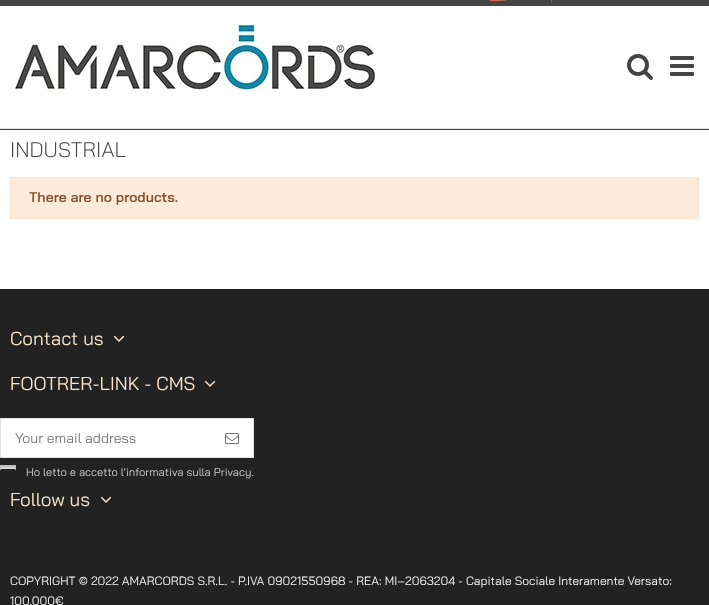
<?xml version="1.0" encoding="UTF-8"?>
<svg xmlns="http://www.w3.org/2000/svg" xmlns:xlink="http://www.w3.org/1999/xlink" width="709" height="605">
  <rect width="100%" height="100%" fill="#ffffff" />
  <rect y="129" width="709" height="1" fill="#444444" />
  <rect width="709" height="6" fill="#444444" />
  <image x="490" y="0" width="16" height="1" xlink:href="image1.png" />
  <rect x="551" width="1" height="3" fill="#686868" />
  <rect y="128" width="709" height="1" fill="#e3e3e3" />
  <image x="15" y="25" width="360" height="71" xlink:href="image2.png" />
  <image x="627" y="54" width="26" height="26" xlink:href="image3.png" />
  <image x="670" y="56" width="24" height="20" xlink:href="image4.png" />
  <rect x="10.5" y="177.5" width="688" height="41" fill="#ffebdc" stroke="#ffe3cf" />
  <rect y="289" width="709" height="316" fill="#222222" />
  <image x="113" y="335" width="12" height="7" xlink:href="image5.png" />
  <image x="204" y="380" width="12" height="7" xlink:href="image5.png" />
  <rect x="0.5" y="418.5" width="253" height="39" fill="#ffffff" stroke="#e3e3e3" />
  <image x="225" y="433" width="14" height="11" xlink:href="image6.png" />
  <rect x="1" y="467" width="14" height="3" fill="#d3d3d3" />
  <rect x="1" y="466" width="14" height="1" fill="#c1c1c1" />
  <rect x="0.5" y="465.5" width="15" height="15" fill="none" stroke="#bcbcbc" />
  <rect x="0.5" y="469.5" width="15" height="15" rx="1.5" fill="#222222" stroke="#222222" />
  <image x="100" y="496" width="12" height="7" xlink:href="image5.png" />
  <text x="10" y="157" style="font-family: Bai Jamjuree; font-size: 21px; font-weight: 300; fill: #444444">INDUSTRIAL</text>
  <text x="29" y="202" style="font-family: Bai Jamjuree; font-size: 14px; font-weight: 600; fill: #85502b">There are no products.</text>
  <text x="10" y="345" style="font-family: Bai Jamjuree; font-size: 18.75px; fill: #f9e5ca">Contact us</text>
  <text x="10" y="390" style="font-family: Bai Jamjuree; font-size: 18.75px; fill: #f9e5ca">FOOTRER-LINK - CMS</text>
  <text x="15" y="443" style="font-family: Bai Jamjuree; font-size: 14px; fill: #777777">Your email address</text>
  <text x="26" y="476" style="font-family: Bai Jamjuree; font-size: 11.2px; fill: #cdcdcd">Ho letto e accetto l'informativa sulla Privacy.</text>
  <text x="10" y="506" style="font-family: Bai Jamjuree; font-size: 18.75px; fill: #f9e5ca">Follow us</text>
  <text x="10" y="585" style="font-family: Bai Jamjuree; font-size: 12px; fill: #f8f8f8">COPYRIGHT © 2022 AMARCORDS S.R.L. - P.IVA 09021550968 - REA: MI–2063204 - Capitale Sociale Interamente Versato:</text>
  <text x="10" y="605" style="font-family: Bai Jamjuree; font-size: 12px; fill: #f8f8f8">100.000€</text>
</svg>
